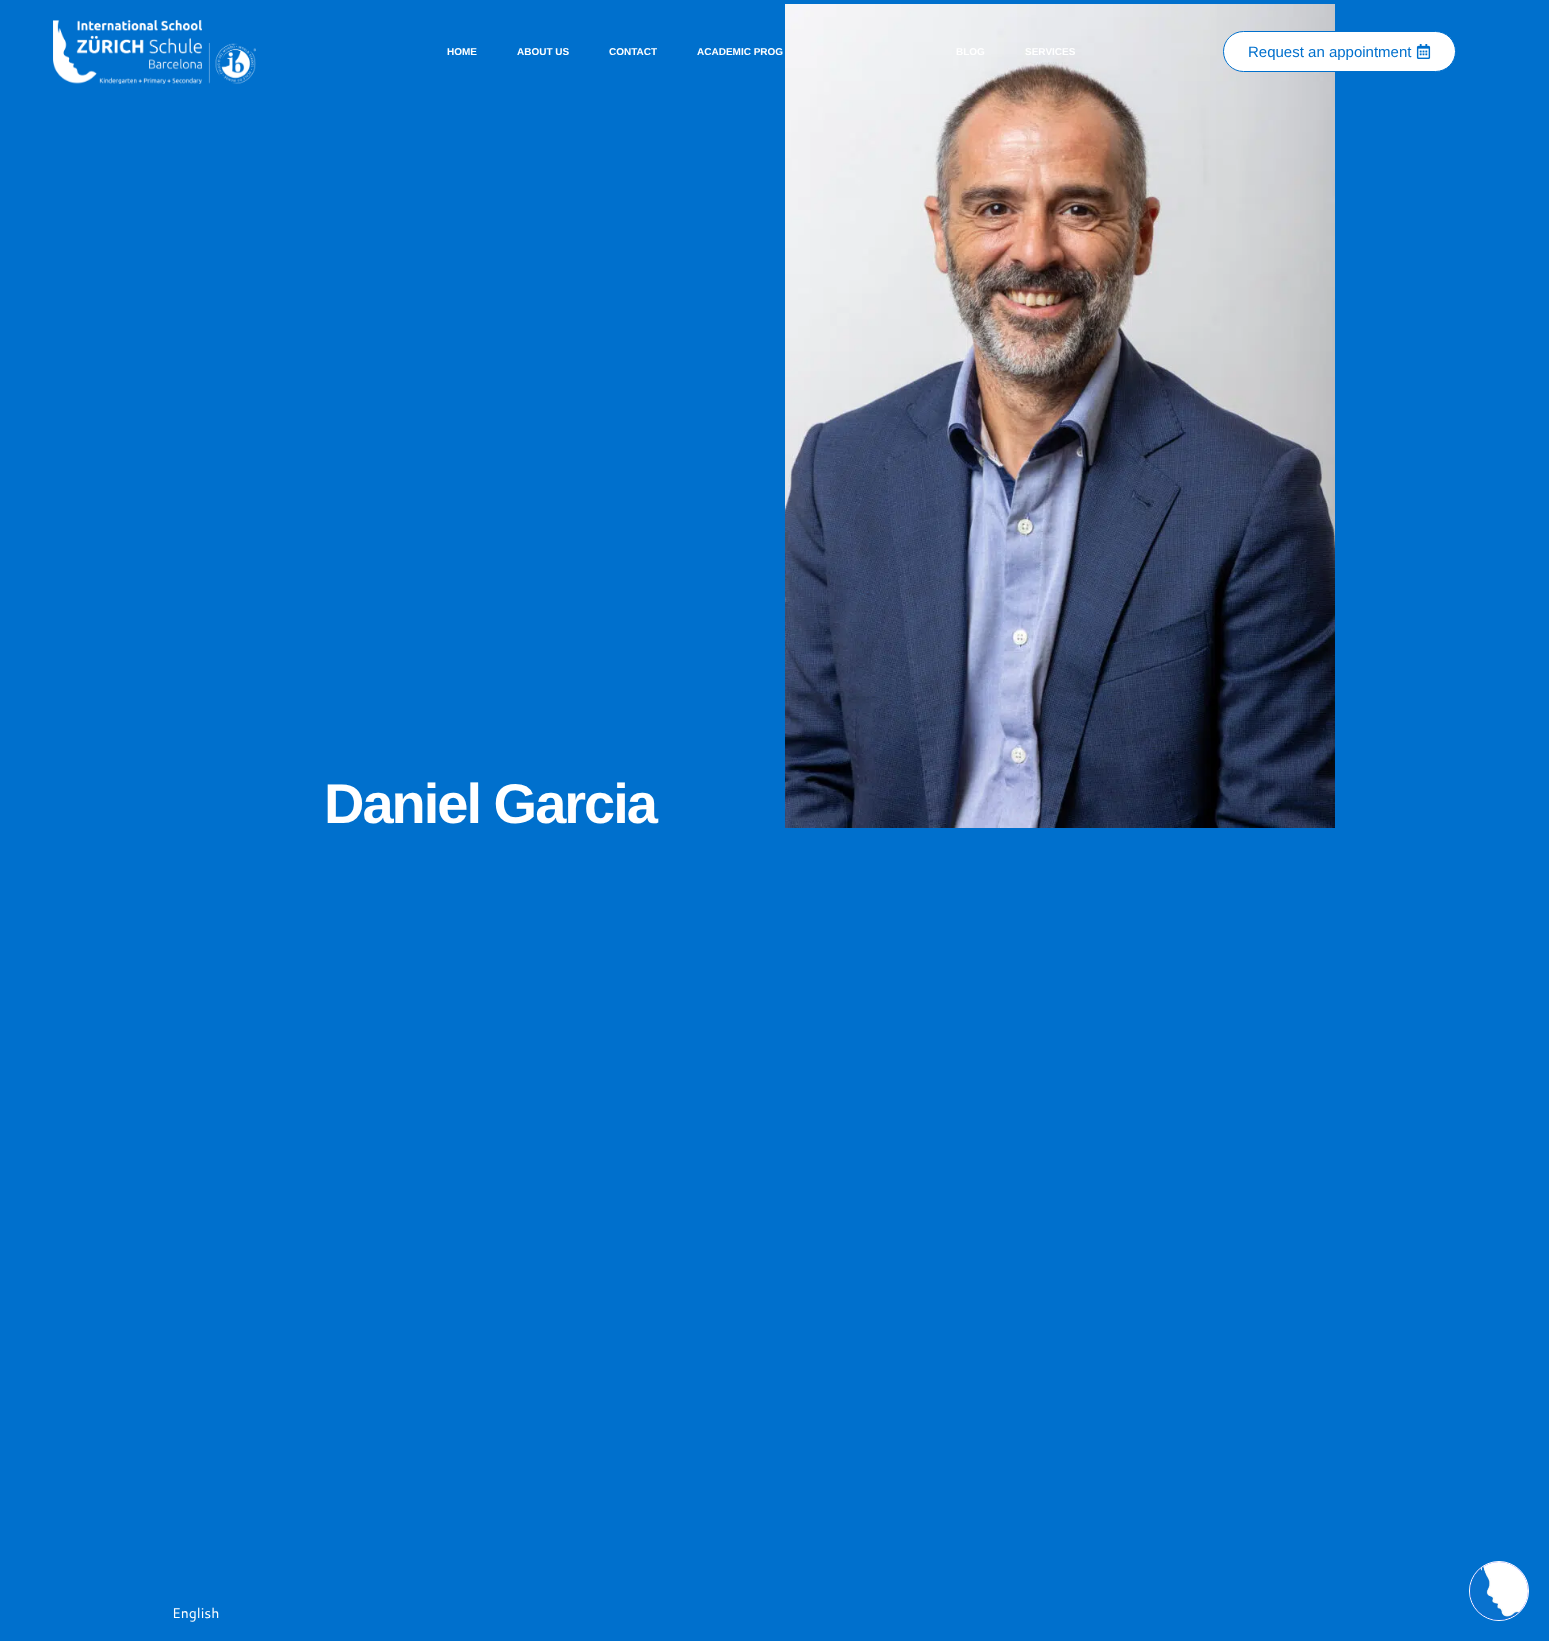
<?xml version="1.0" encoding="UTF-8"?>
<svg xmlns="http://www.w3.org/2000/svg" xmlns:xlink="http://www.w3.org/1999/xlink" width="1549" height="1641">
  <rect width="100%" height="100%" fill="#0070cd" />
  <image x="53" y="20" width="203" height="64" xlink:href="image1.png" />
  <image x="785" y="4" width="550" height="824" xlink:href="image3.png" />
  <rect x="1223.5" y="31.5" width="232" height="40" rx="20" fill="#ffffff" stroke="#0070cd" />
  <image x="1416" y="44" width="15" height="15" xlink:href="image2.png" />
  <circle cx="1499" cy="1591" r="29.5" fill="#685fff" stroke="#ffffff" />
  <image x="1470" y="1562" width="58" height="58" xlink:href="image4.png" />
  <text x="447" y="55" style="font-family: Liberation Sans; font-size: 10px; font-weight: bold; fill: #ffffff">HOME</text>
  <text x="517" y="55" style="font-family: Liberation Sans; font-size: 10px; font-weight: bold; fill: #ffffff">ABOUT US</text>
  <text x="609" y="55" style="font-family: Liberation Sans; font-size: 10px; font-weight: bold; fill: #ffffff">CONTACT</text>
  <text x="697" y="55" style="font-family: Liberation Sans; font-size: 10px; font-weight: bold; fill: #ffffff">ACADEMIC PROG</text>
  <text x="956" y="55" style="font-family: Liberation Sans; font-size: 10px; font-weight: bold; fill: #ffffff">BLOG</text>
  <text x="1025" y="55" style="font-family: Liberation Sans; font-size: 10px; font-weight: bold; fill: #ffffff">SERVICES</text>
  <text x="1248" y="57" style="font-family: Liberation Sans; font-size: 15px; fill: #0070cd">Request an appointment</text>
  <text x="324" y="823" style="font-family: Liberation Sans; font-size: 56px; font-weight: bold; letter-spacing: -2px; fill: #ffffff">Daniel Garcia</text>
  <text x="172" y="1618" style="font-family: Cantarell; font-size: 14px; fill: #ffffff">English</text>
</svg>
